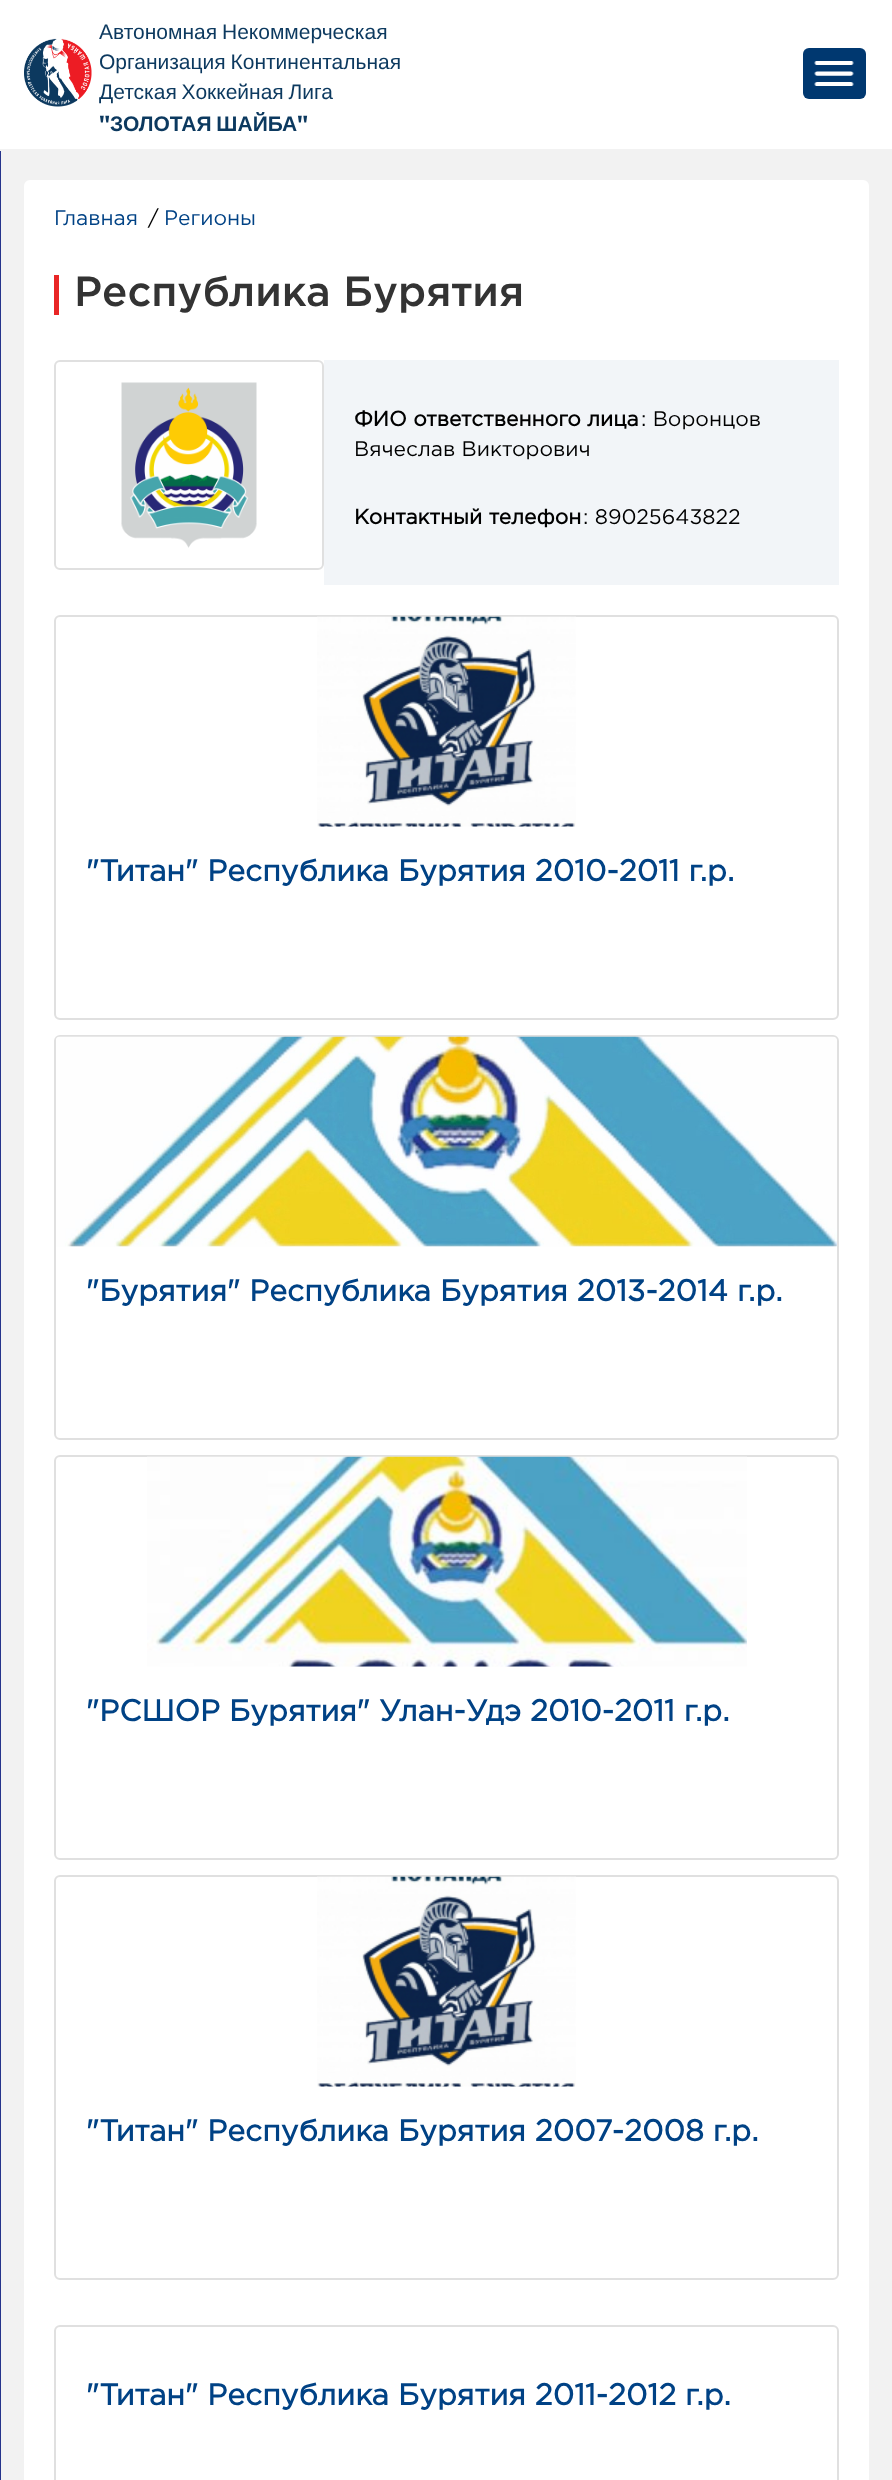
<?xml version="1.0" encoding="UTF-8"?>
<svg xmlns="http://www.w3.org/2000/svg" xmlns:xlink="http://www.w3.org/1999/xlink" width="892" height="2480">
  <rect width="100%" height="100%" fill="#f2f2f2" />
  <rect width="892" height="149" fill="#ffffff" />
  <rect y="150" width="1" height="2330" fill="#26348c" />
  <rect y="150" width="1" height="1" fill="#f2f2f2" />
  <image x="24" y="38" width="68" height="69" xlink:href="image1.png" />
  <rect x="803" y="48" width="63" height="51" rx="6" fill="#003870" />
  <image x="814" y="61" width="40" height="25" xlink:href="image2.png" />
  <rect x="24" y="180" width="845" height="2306" rx="6" fill="#ffffff" />
  <rect x="54" y="275" width="5" height="40" fill="#e92626" />
  <rect x="55" y="361" width="268" height="208" rx="5" fill="none" stroke="#e0e0e0" stroke-width="2" />
  <image x="121" y="382" width="136" height="166" xlink:href="image3.png" />
  <rect x="324" y="360" width="515" height="225" fill="#f2f5f8" />
  <rect x="55" y="616" width="783" height="403" rx="5" fill="none" stroke="#e0e0e0" stroke-width="2" />
  <image x="317" y="616" width="259" height="211" xlink:href="image4.png" />
  <rect x="55" y="1036" width="783" height="403" rx="5" fill="none" stroke="#e0e0e0" stroke-width="2" />
  <image x="56" y="1036" width="781" height="211" xlink:href="image5.png" />
  <rect x="55" y="1456" width="783" height="403" rx="5" fill="none" stroke="#e0e0e0" stroke-width="2" />
  <image x="147" y="1456" width="600" height="211" xlink:href="image6.png" />
  <rect x="55" y="1876" width="783" height="403" rx="5" fill="none" stroke="#e0e0e0" stroke-width="2" />
  <image x="317" y="1876" width="259" height="211" xlink:href="image4.png" />
  <rect x="55" y="2326" width="783" height="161" rx="5" fill="none" stroke="#e0e0e0" stroke-width="2" />
  <text x="99" y="39" word-spacing="-1" style="font-family: Liberation Sans; font-size: 21px; fill: #0c395f">Автономная Некоммерческая</text>
  <text x="99" y="69" word-spacing="-1" style="font-family: Liberation Sans; font-size: 21px; fill: #0c395f">Организация Континентальная</text>
  <text x="99" y="99" word-spacing="-1" style="font-family: Liberation Sans; font-size: 21px; fill: #0c395f">Детская Хоккейная Лига</text>
  <text x="99" y="131" style="font-family: Public Sans; font-size: 21px; font-weight: 900; fill: #0c395f">"</text>
  <text x="110" y="131" word-spacing="-1" style="font-family: Liberation Sans; font-size: 21px; font-weight: bold; fill: #0c395f">ЗОЛОТАЯ ШАЙБА</text>
  <text x="297" y="131" style="font-family: Public Sans; font-size: 21px; font-weight: 900; fill: #0c395f">"</text>
  <text x="54" y="225" style="font-family: Gotham; font-size: 21px; fill: #004285">Главная</text>
  <text x="148" y="225" style="font-family: Gotham; font-size: 21px; fill: #000000">/</text>
  <text x="164" y="225" style="font-family: Gotham; font-size: 21px; fill: #004285">Регионы</text>
  <text x="74" y="306" style="font-family: Gotham; font-size: 42px; font-weight: 500; fill: #333333">Республика Бурятия</text>
  <text x="354" y="426" style="font-family: Gotham; font-size: 21px; font-weight: bold; fill: #000000">ФИО ответственного лица</text>
  <text x="641" y="426" style="font-family: Gotham; font-size: 21px; fill: #000000">: Воронцов</text>
  <text x="354" y="456" style="font-family: Gotham; font-size: 21px; fill: #000000">Вячеслав Викторович</text>
  <text x="354" y="524" style="font-family: Gotham; font-size: 21px; font-weight: bold; fill: #000000">Контактный телефон</text>
  <text x="583" y="524" style="font-family: Gotham; font-size: 21px; fill: #000000">: 89025643822</text>
  <text x="86" y="881" style="font-family: Gotham; font-size: 30px; font-weight: bold; fill: #004285">"Титан" Республика Бурятия 2010-2011 г.р.</text>
  <text x="86" y="1301" style="font-family: Gotham; font-size: 30px; font-weight: bold; fill: #004285">"Бурятия" Республика Бурятия 2013-2014 г.р.</text>
  <text x="86" y="1721" style="font-family: Gotham; font-size: 30px; font-weight: bold; fill: #004285">"РСШОР Бурятия" Улан-Удэ 2010-2011 г.р.</text>
  <text x="86" y="2141" style="font-family: Gotham; font-size: 30px; font-weight: bold; fill: #004285">"Титан" Республика Бурятия 2007-2008 г.р.</text>
  <text x="86" y="2405" style="font-family: Gotham; font-size: 30px; font-weight: bold; fill: #004285">"Титан" Республика Бурятия 2011-2012 г.р.</text>
</svg>
